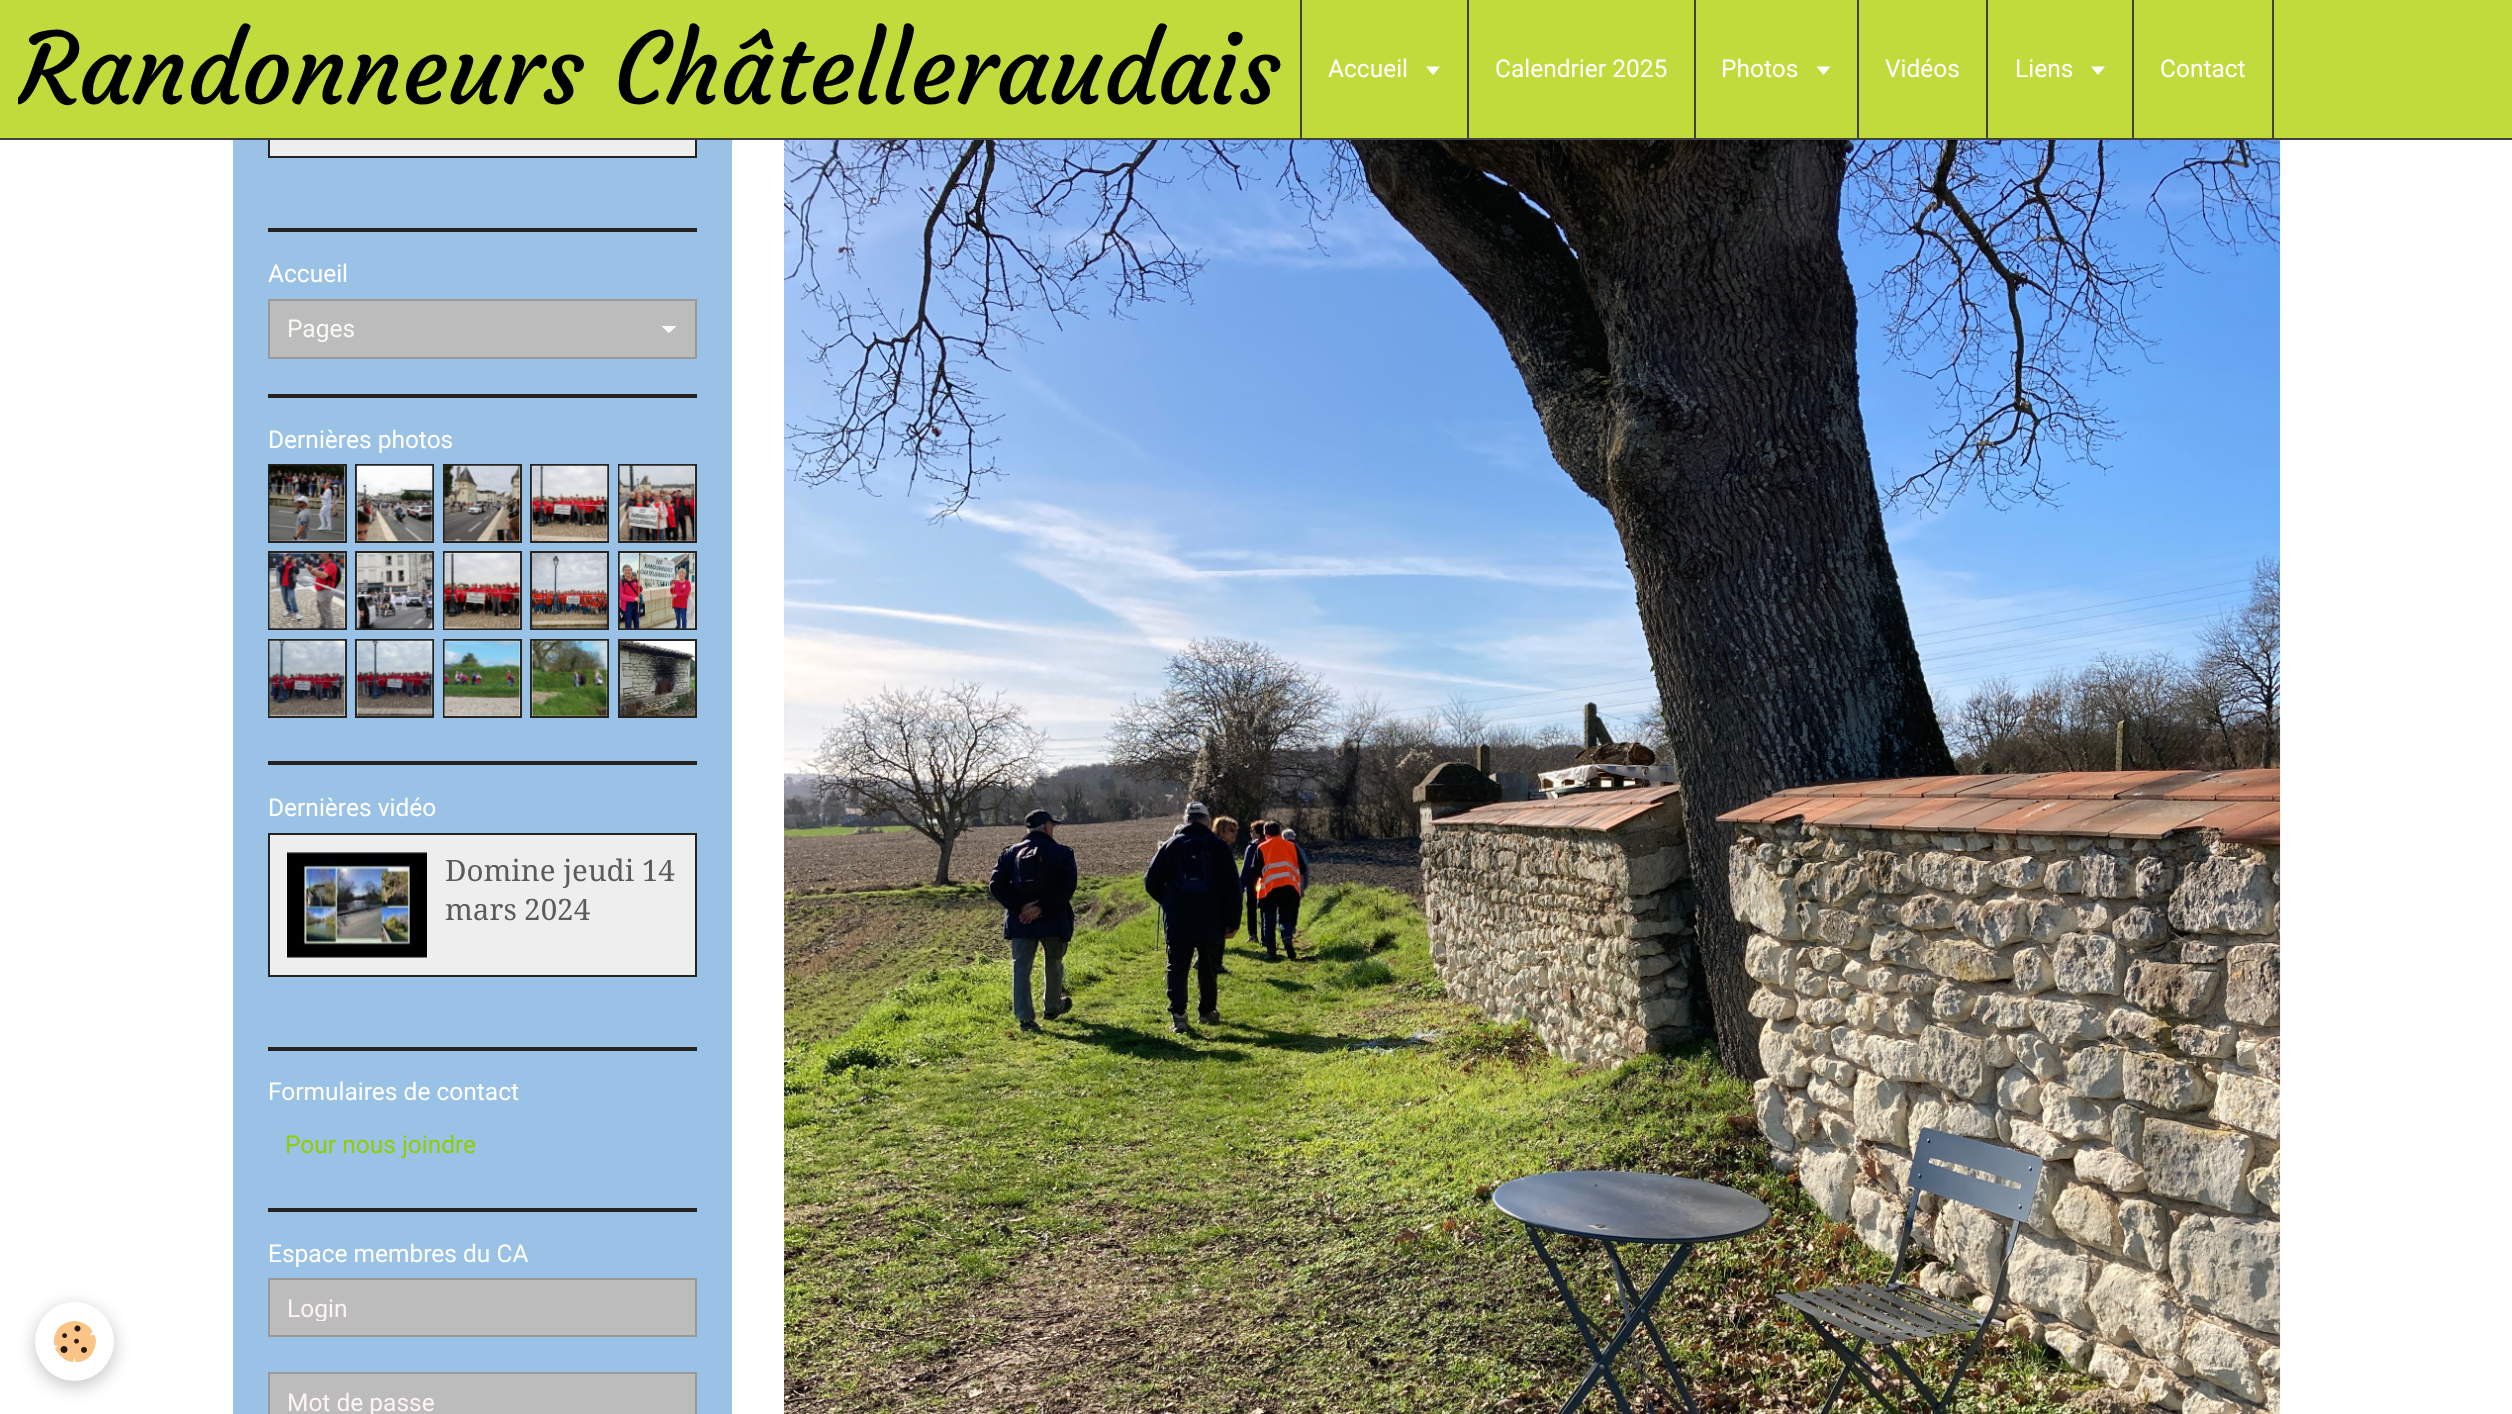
<?xml version="1.0" encoding="UTF-8"?>
<svg xmlns="http://www.w3.org/2000/svg" xmlns:xlink="http://www.w3.org/1999/xlink" width="2512" height="1414">
  <defs>
    <linearGradient id="g1" gradientUnits="userSpaceOnUse" x1="669" y1="325" x2="677" y2="333"><stop offset="0.5" stop-color="#f8faf4" /><stop offset="0.5" stop-color="#bcbcbc" /></linearGradient>
    <linearGradient id="g2" gradientUnits="userSpaceOnUse" x1="660" y1="333" x2="669" y2="325"><stop offset="0.5" stop-color="#bcbcbc" /><stop offset="0.5" stop-color="#f8faf4" /></linearGradient>
    <clipPath id="clip1"><rect x="18" width="1263" height="138" /></clipPath>
    <clipPath id="clip2"><rect x="287" y="1293" width="390" height="28" /></clipPath>
  </defs>
  <rect width="100%" height="100%" fill="#ffffff" />
  <rect x="233" y="140" width="499" height="1274" fill="#9ac2e7" />
  <rect x="270" y="140" width="425" height="16" fill="#eeeeee" />
  <rect x="269" y="-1" width="427" height="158" fill="none" stroke="#25231f" stroke-width="2" />
  <rect width="2512" height="138" fill="#c1db3c" />
  <rect y="138" width="2512" height="2" fill="#41413d" />
  <rect x="1467" width="2" height="138" fill="#41413d" />
  <rect x="1300" width="2" height="138" fill="#41413d" />
  <path d="M 1426 66.5 h 14 l -7 8.5 z" fill="#ffffff" />
  <rect x="1694" width="2" height="138" fill="#41413d" />
  <rect x="1857" width="2" height="138" fill="#41413d" />
  <path d="M 1816.5 66.5 h 14 l -7 8.5 z" fill="#ffffff" />
  <rect x="1986" width="2" height="138" fill="#41413d" />
  <rect x="2132" width="2" height="138" fill="#41413d" />
  <path d="M 2091 66.5 h 14 l -7 8.5 z" fill="#ffffff" />
  <rect x="2272" width="2" height="138" fill="#41413d" />
  <rect x="35" y="1307" width="79" height="79" rx="39.5" fill="#000000" fill-opacity="0.24" filter="blur(9px)" />
  <circle cx="74.5" cy="1341.5" r="39.5" fill="#ffffff" />
  <image x="53" y="1321" width="43" height="42" xlink:href="image1.png" />
  <rect x="268" y="228" width="429" height="4" fill="#25231f" />
  <rect x="268" y="394" width="429" height="4" fill="#25231f" />
  <rect x="270" y="301" width="425" height="56" fill="#bcbcbc" />
  <rect x="669" y="326" width="8" height="6" fill="url(#g1)" />
  <rect x="660" y="326" width="9" height="7" fill="url(#g2)" />
  <rect x="269" y="300" width="427" height="58" fill="none" stroke="#999999" stroke-width="2" />
  <rect x="268" y="761" width="429" height="4" fill="#25231f" />
  <rect x="269" y="465" width="77" height="77" fill="#eeeeee" stroke="#25231f" stroke-width="2" />
  <image x="269" y="465" width="76" height="77" xlink:href="image2.png" />
  <rect x="356" y="465" width="77" height="77" fill="#eeeeee" stroke="#25231f" stroke-width="2" />
  <image x="356" y="465" width="77" height="77" xlink:href="image3.png" />
  <rect x="444" y="465" width="77" height="77" fill="#eeeeee" stroke="#25231f" stroke-width="2" />
  <image x="444" y="465" width="77" height="77" xlink:href="image4.png" />
  <rect x="531" y="465" width="77" height="77" fill="#eeeeee" stroke="#25231f" stroke-width="2" />
  <image x="531" y="465" width="77" height="77" xlink:href="image5.png" />
  <rect x="619" y="465" width="77" height="77" fill="#eeeeee" stroke="#25231f" stroke-width="2" />
  <image x="619" y="465" width="77" height="77" xlink:href="image6.png" />
  <rect x="269" y="552" width="77" height="77" fill="#eeeeee" stroke="#25231f" stroke-width="2" />
  <image x="269" y="553" width="77" height="76" xlink:href="image7.png" />
  <rect x="356" y="552" width="77" height="77" fill="#eeeeee" stroke="#25231f" stroke-width="2" />
  <image x="356" y="553" width="77" height="76" xlink:href="image8.png" />
  <rect x="444" y="552" width="77" height="77" fill="#eeeeee" stroke="#25231f" stroke-width="2" />
  <image x="444" y="552" width="77" height="77" xlink:href="image9.png" />
  <rect x="531" y="552" width="77" height="77" fill="none" stroke="#25231f" stroke-width="2" />
  <image x="532" y="553" width="76" height="76" xlink:href="image10.png" />
  <rect x="619" y="552" width="77" height="77" fill="#eeeeee" stroke="#25231f" stroke-width="2" />
  <image x="619" y="553" width="76" height="76" xlink:href="image11.png" />
  <rect x="269" y="640" width="77" height="77" fill="#eeeeee" stroke="#25231f" stroke-width="2" />
  <image x="269" y="640" width="77" height="77" xlink:href="image12.png" />
  <rect x="356" y="640" width="77" height="77" fill="#eeeeee" stroke="#25231f" stroke-width="2" />
  <image x="356" y="640" width="77" height="76" xlink:href="image13.png" />
  <rect x="444" y="640" width="77" height="77" fill="#eeeeee" stroke="#25231f" stroke-width="2" />
  <image x="444" y="640" width="77" height="77" xlink:href="image14.png" />
  <rect x="531" y="640" width="77" height="77" fill="#eeeeee" stroke="#25231f" stroke-width="2" />
  <image x="531" y="640" width="77" height="77" xlink:href="image15.png" />
  <rect x="619" y="640" width="77" height="77" fill="none" stroke="#25231f" stroke-width="2" />
  <image x="620" y="641" width="75" height="75" xlink:href="image16.png" />
  <rect x="268" y="1047" width="429" height="4" fill="#25231f" />
  <rect x="269" y="834" width="427" height="142" fill="#eeeeee" stroke="#25231f" stroke-width="2" />
  <image x="287" y="852" width="140" height="106" xlink:href="image17.png" />
  <rect x="268" y="1208" width="429" height="4" fill="#25231f" />
  <rect x="269" y="1279" width="427" height="57" fill="#bcbcbc" stroke="#999999" stroke-width="2" />
  <rect x="269" y="1373" width="427" height="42" fill="#bcbcbc" stroke="#999999" stroke-width="2" />
  <image x="784" y="140" width="1497" height="1274" xlink:href="image18.png" />
  <g clip-path="url(#clip1)">
    <text x="18" y="104" style="font-family: Courgette; font-size: 98px; fill: #000000">Randonneurs Châtelleraudais</text>
  </g>
  <text x="1328" y="77" style="font-family: Roboto; font-size: 24.5px; fill: #ffffff">Accueil</text>
  <text x="1495" y="77" style="font-family: Roboto; font-size: 24.5px; fill: #ffffff">Calendrier 2025</text>
  <text x="1721" y="77" style="font-family: Roboto; font-size: 24.5px; fill: #ffffff">Photos</text>
  <text x="1885" y="77" style="font-family: Roboto; font-size: 24.5px; fill: #ffffff">Vidéos</text>
  <text x="2015" y="77" style="font-family: Roboto; font-size: 24.5px; fill: #ffffff">Liens</text>
  <text x="2160" y="77" style="font-family: Roboto; font-size: 24.5px; fill: #ffffff">Contact</text>
  <text x="268" y="282" style="font-family: Roboto; font-size: 24.5px; fill: #ffffff">Accueil</text>
  <text x="287" y="337" style="font-family: Roboto; font-size: 24.5px; fill: #f8faf4">Pages</text>
  <text x="268" y="448" style="font-family: Roboto; font-size: 24.5px; fill: #ffffff">Dernières photos</text>
  <text x="268" y="816" style="font-family: Roboto; font-size: 24.5px; fill: #ffffff">Dernières vidéo</text>
  <text x="445" y="881" style="font-family: Droid Serif; font-size: 29.5px; fill: #5b5b5b">Domine jeudi 14</text>
  <text x="445" y="920" style="font-family: Droid Serif; font-size: 29.5px; fill: #5b5b5b">mars 2024</text>
  <text x="268" y="1100" style="font-family: Roboto; font-size: 24.5px; fill: #ffffff">Formulaires de contact</text>
  <text x="285" y="1153" style="font-family: Roboto; font-size: 24.5px; fill: #8fce00">Pour nous joindre</text>
  <text x="268" y="1262" style="font-family: Roboto; font-size: 24.5px; fill: #ffffff">Espace membres du CA</text>
  <g clip-path="url(#clip2)">
    <text x="287" y="1317" style="font-family: Roboto; font-size: 24.5px; fill: #fff4f4">Login</text>
  </g>
  <text x="287" y="1411" style="font-family: Roboto; font-size: 24.5px; fill: #fff4f4">Mot de passe</text>
</svg>
